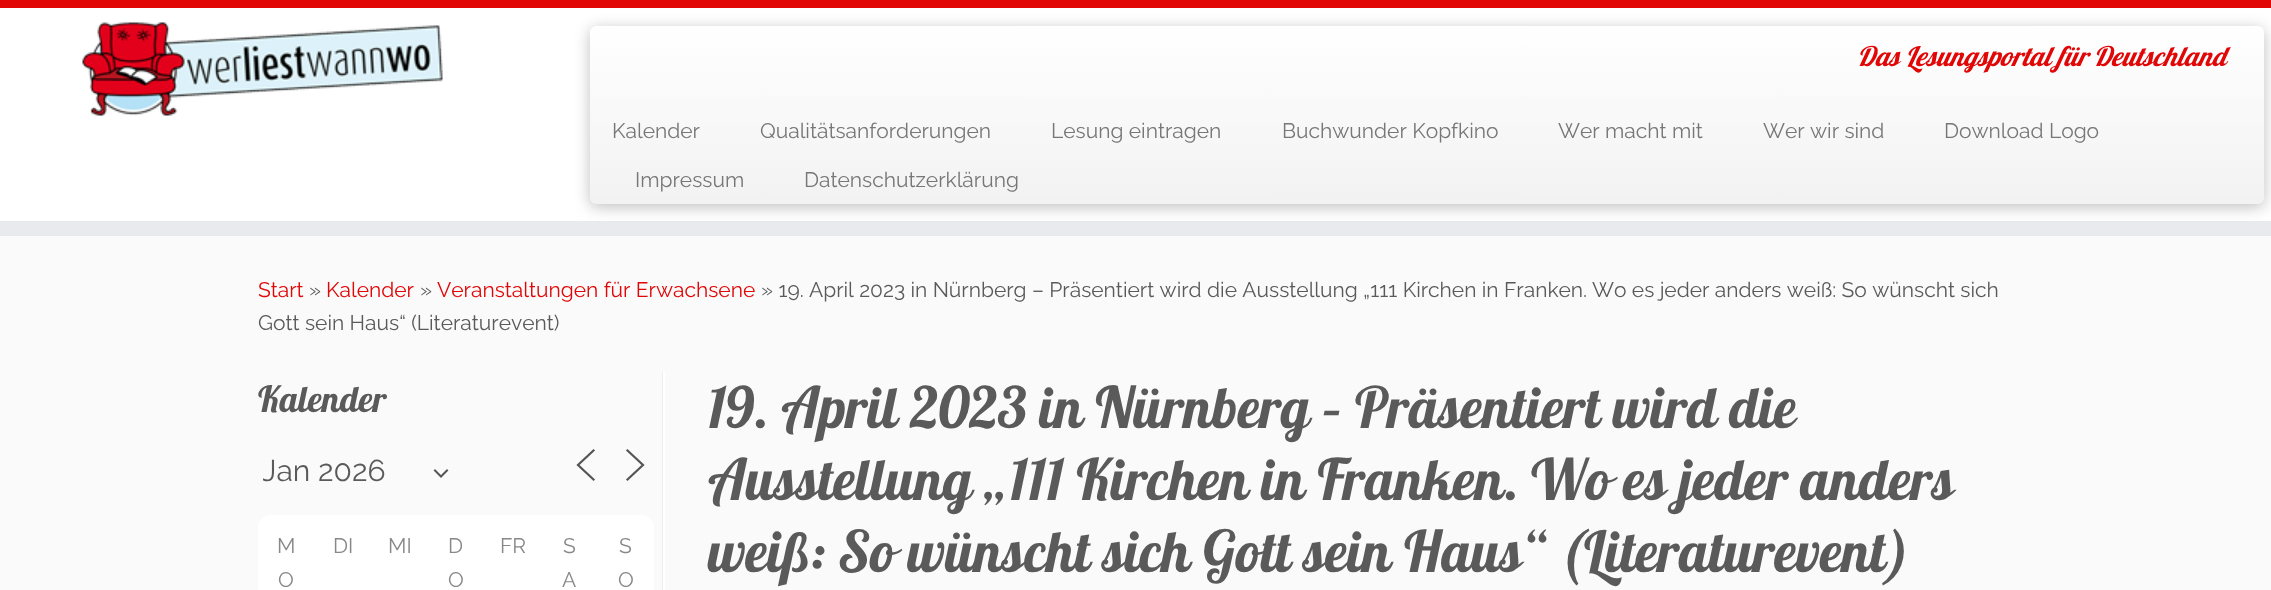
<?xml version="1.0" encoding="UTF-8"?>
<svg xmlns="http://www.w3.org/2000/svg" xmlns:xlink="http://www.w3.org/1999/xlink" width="2271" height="590">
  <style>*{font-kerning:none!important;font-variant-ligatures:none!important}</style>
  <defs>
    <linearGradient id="g1" gradientUnits="userSpaceOnUse" x1="1427" y1="25" x2="1427" y2="204"><stop offset="0" stop-color="#ffffff" /><stop offset="1" stop-color="#f2f2f2" /></linearGradient>
    <clipPath id="clip1"><rect x="263" y="453" width="186" height="36" /></clipPath>
  </defs>
  <rect width="100%" height="100%" fill="#fafafa" />
  <rect y="8" width="2271" height="213" fill="#ffffff" />
  <rect width="2271" height="8" fill="#e10707" />
  <rect y="221" width="2271" height="15" fill="#e9eaee" />
  <image x="82" y="22" width="361" height="94" xlink:href="image1.png" />
  <rect x="590" y="29" width="1674" height="178" rx="6" fill="#000000" fill-opacity="0.25" filter="blur(7.5px)" />
  <rect x="590" y="26" width="1674" height="178" rx="6" fill="url(#g1)" />
  <rect x="662" y="372" width="1" height="218" fill="#eeeeee" />
  <path d="M 435 470.5 l 6 6 l 6 -6" fill="none" stroke="#555555" stroke-width="2" stroke-linecap="square" />
  <path d="M 593.5 479.5 l -15.5 -14.5 l 15.5 -14.5" fill="none" stroke="#555555" stroke-width="2.2" stroke-linecap="square" />
  <path d="M 627.5 479.5 l 15.5 -14.5 l -15.5 -14.5" fill="none" stroke="#555555" stroke-width="2.2" stroke-linecap="square" />
  <path d="M 270 515 h 372 c 6.5 0 12 5.5 12 12 v 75 h -396 v -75 c 0 -6.5 5.5 -12 12 -12 z" fill="#ffffff" />
  <rect x="663" y="372" width="2" height="218" fill="#ffffff" />
  <text x="1857" y="66" style="font-family: Lobster; font-size: 27px; font-style: italic; fill: #e10707">Das Lesungsportal für Deutschland</text>
  <text x="612" y="138" style="font-family: Raleway; font-size: 21px; fill: #777777">Kalender</text>
  <text x="760" y="138" style="font-family: Raleway; font-size: 21px; fill: #777777">Qualitätsanforderungen</text>
  <text x="1051" y="138" style="font-family: Raleway; font-size: 21px; fill: #777777">Lesung eintragen</text>
  <text x="1282" y="138" style="font-family: Raleway; font-size: 21px; fill: #777777">Buchwunder Kopfkino</text>
  <text x="1558" y="138" style="font-family: Raleway; font-size: 21px; fill: #777777">Wer macht mit</text>
  <text x="1763" y="138" style="font-family: Raleway; font-size: 21px; fill: #777777">Wer wir sind</text>
  <text x="1944" y="138" style="font-family: Raleway; font-size: 21px; fill: #777777">Download Logo</text>
  <text x="635" y="187" style="font-family: Raleway; font-size: 21px; fill: #777777">Impressum</text>
  <text x="804" y="187" style="font-family: Raleway; font-size: 21px; fill: #777777">Datenschutzerklärung</text>
  <text x="258" y="297" style="font-family: Raleway; font-size: 21px; fill: #e10707">Start</text>
  <text x="309" y="297" style="font-family: Raleway; font-size: 21px; fill: #5a5a5a">»</text>
  <text x="326" y="297" style="font-family: Raleway; font-size: 21px; fill: #e10707">Kalender</text>
  <text x="420" y="297" style="font-family: Raleway; font-size: 21px; fill: #5a5a5a">»</text>
  <text x="437" y="297" style="font-family: Raleway; font-size: 21px; fill: #e10707">Veranstaltungen für Erwachsene</text>
  <text x="761" y="297" style="font-family: Raleway; font-size: 21px; fill: #5a5a5a">» 19. April 2023 in Nürnberg – Präsentiert wird die Ausstellung „111 Kirchen in Franken.</text>
  <text x="1592" y="297" style="font-family: Raleway; font-size: 21px; fill: #5a5a5a">Wo es jeder anders weiß: So wünscht sich</text>
  <text x="258" y="330" style="font-family: Raleway; font-size: 21px; fill: #5a5a5a">Gott sein Haus“ (Literaturevent)</text>
  <text x="258" y="412" style="font-family: Lobster; font-size: 36px; fill: #5a5a5a">Kalender</text>
  <g clip-path="url(#clip1)">
    <text x="262" y="481" style="font-family: Raleway; font-size: 30px; fill: #5a5a5a">Jan 2026</text>
  </g>
  <text x="277" y="553" style="font-family: Raleway; font-size: 21px; fill: #888888">M</text>
  <text x="278" y="587" style="font-family: Raleway; font-size: 21px; fill: #888888">O</text>
  <text x="333" y="553" style="font-family: Raleway; font-size: 21px; fill: #888888">DI</text>
  <text x="388" y="553" style="font-family: Raleway; font-size: 21px; fill: #888888">MI</text>
  <text x="448" y="553" style="font-family: Raleway; font-size: 21px; fill: #888888">D</text>
  <text x="448" y="587" style="font-family: Raleway; font-size: 21px; fill: #888888">O</text>
  <text x="500" y="553" style="font-family: Raleway; font-size: 21px; fill: #888888">FR</text>
  <text x="563" y="553" style="font-family: Raleway; font-size: 21px; fill: #888888">S</text>
  <text x="562" y="587" style="font-family: Raleway; font-size: 21px; fill: #888888">A</text>
  <text x="619" y="553" style="font-family: Raleway; font-size: 21px; fill: #888888">S</text>
  <text x="618" y="587" style="font-family: Raleway; font-size: 21px; fill: #888888">O</text>
  <text x="708" y="428" style="font-family: Lobster; font-size: 57px; fill: #5a5a5a">19. April 2023 in Nürnberg – Präsentiert wird die</text>
  <text x="708" y="500" style="font-family: Lobster; font-size: 57px; fill: #5a5a5a">Ausstellung „111 Kirchen in Franken.</text>
  <text x="1531" y="500" style="font-family: Lobster; font-size: 57px; fill: #5a5a5a">Wo es jeder anders</text>
  <text x="708" y="572" style="font-family: Lobster; font-size: 57px; fill: #5a5a5a">weiß: So wünscht sich Gott sein Haus“</text>
  <text x="1559" y="572" style="font-family: Lobster; font-size: 57px; fill: #5a5a5a">(Literaturevent)</text>
</svg>
